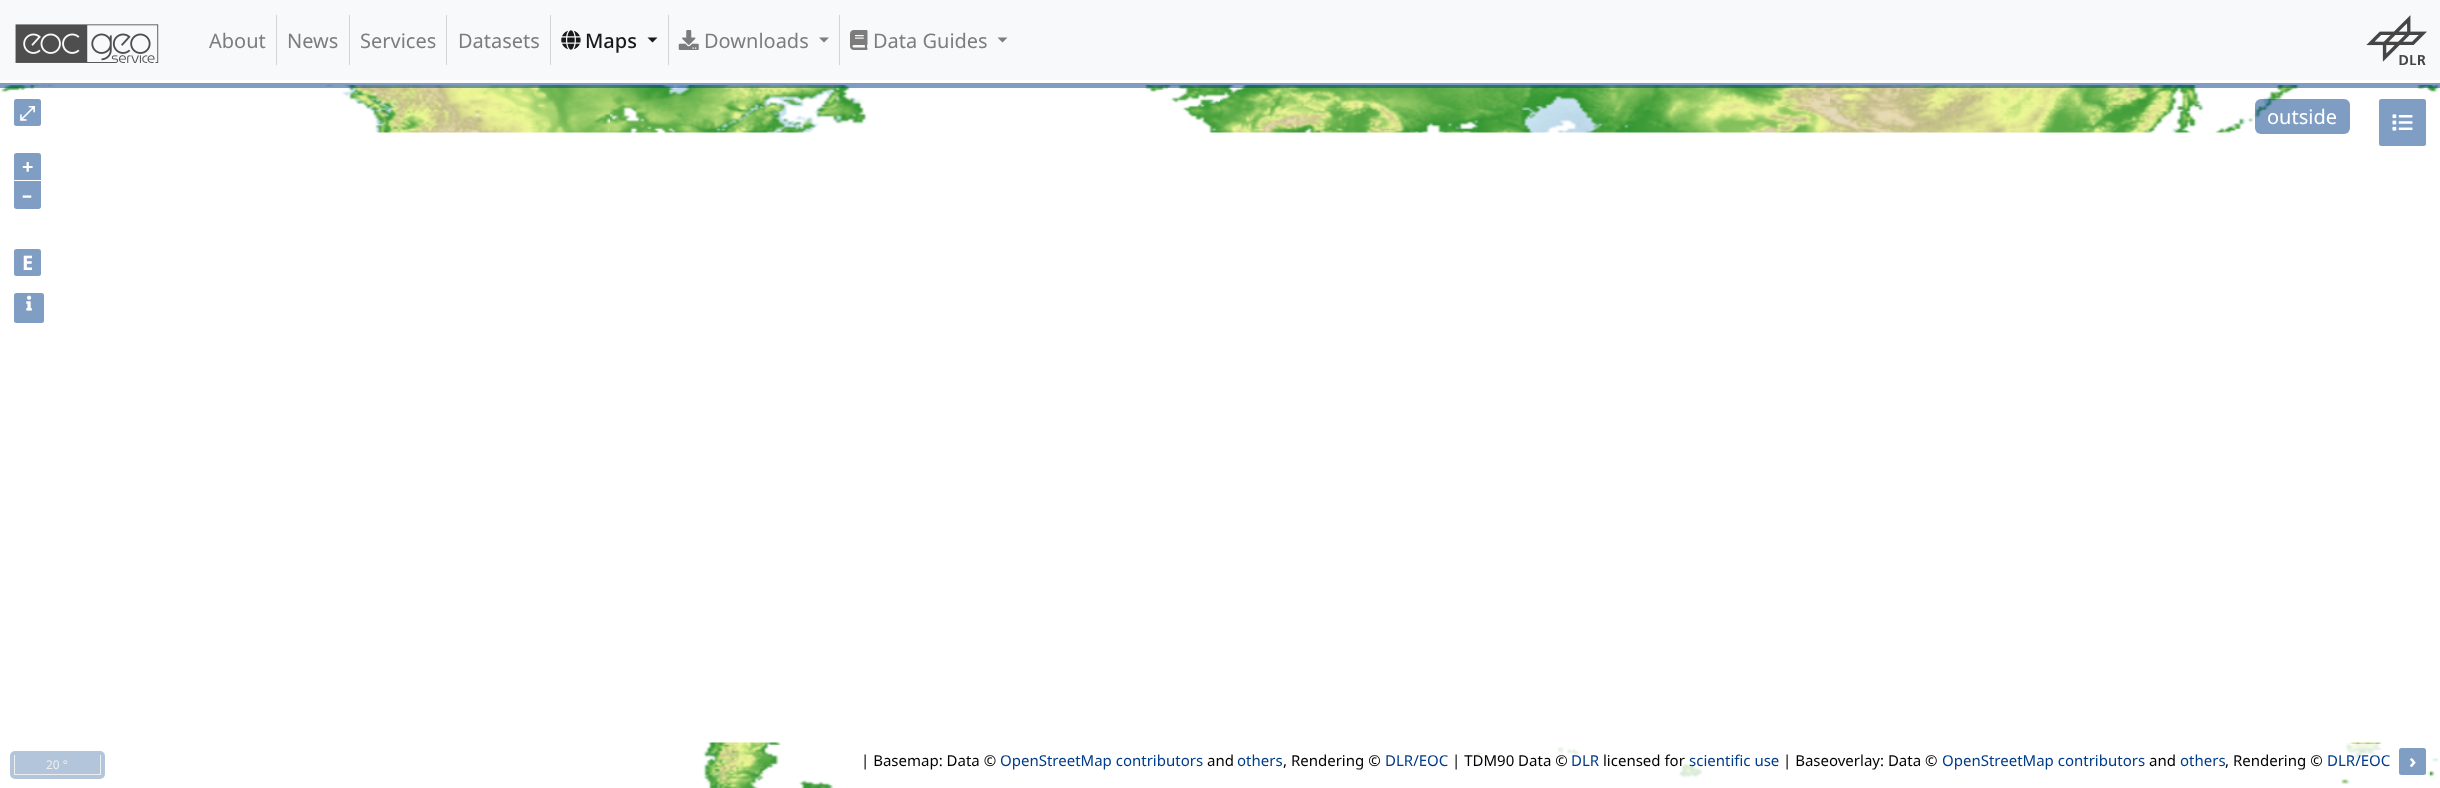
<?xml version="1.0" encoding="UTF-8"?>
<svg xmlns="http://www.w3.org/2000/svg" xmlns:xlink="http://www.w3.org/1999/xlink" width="2440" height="788">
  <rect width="100%" height="100%" fill="#ffffff" />
  <rect width="2440" height="80" fill="#f8f9fa" />
  <image x="15" y="24" width="144" height="39" xlink:href="image1.png" />
  <rect x="276" y="15" width="1" height="50" fill="#d3d3d3" />
  <rect x="349" y="15" width="1" height="50" fill="#d3d3d3" />
  <rect x="446" y="15" width="1" height="50" fill="#d3d3d3" />
  <rect x="550" y="15" width="1" height="50" fill="#d3d3d3" />
  <rect x="668" y="15" width="1" height="50" fill="#d3d3d3" />
  <image x="561" y="30" width="20" height="20" xlink:href="image2.png" />
  <path d="M 647.5 37.5 h 10 l -5 5 z" fill="#191919" />
  <rect x="839" y="15" width="1" height="50" fill="#d3d3d3" />
  <image x="678" y="30" width="21" height="20" xlink:href="image3.png" />
  <path d="M 819 37.5 h 10 l -5 5 z" fill="#7c7d7d" />
  <image x="850" y="30" width="18" height="20" xlink:href="image4.png" />
  <path d="M 997.5 37.5 h 10 l -5 5 z" fill="#7c7d7d" />
  <image x="2366" y="15" width="61" height="50" xlink:href="image5.png" />
  <image x="1" y="85" width="2438" height="703" xlink:href="image6.png" />
  <rect y="83" width="2440" height="5" fill="#003c88" fill-opacity="0.5" />
  <rect x="14" y="99" width="27" height="27" rx="2.5" fill="#809ec4" />
  <rect x="2255" y="99" width="95" height="35" rx="6" fill="#003c88" fill-opacity="0.5" />
  <rect x="2379" y="99" width="47" height="47" rx="2.5" fill="#809ec4" />
  <image x="2392" y="114" width="21" height="17" xlink:href="image7.png" />
  <path d="M 16.5 153 h 22 c 1.5 0 2.5 1 2.5 2.5 v 24.5 h -27 v -24.5 c 0 -1.5 1 -2.5 2.5 -2.5 z" fill="#809ec4" />
  <path d="M 14 181 h 27 v 25.5 c 0 1.5 -1 2.5 -2.5 2.5 h -22 c -1.5 0 -2.5 -1 -2.5 -2.5 z" fill="#809ec4" />
  <rect x="14" y="249" width="27" height="27" rx="2.5" fill="#809ec4" />
  <rect x="14" y="293" width="30" height="30" rx="2.5" fill="#809ec4" />
  <image x="26" y="295" width="6" height="16" xlink:href="image8.png" />
  <rect x="10" y="751" width="95" height="28" rx="5" fill="#b3c5db" />
  <rect x="100" y="755" width="1" height="20" fill="#eeeeee" />
  <rect x="14" y="774" width="87" height="1" fill="#eeeeee" />
  <rect x="14" y="755" width="1" height="20" fill="#eeeeee" />
  <rect x="850" y="744" width="1580" height="35" rx="5" fill="#ffffff" fill-opacity="0.8" />
  <rect x="2399" y="748" width="27" height="27" rx="2.5" fill="#809ec4" />
  <text x="209" y="48" style="font-family: Noto Sans; font-size: 20px; fill: #7c7d7d">About</text>
  <text x="287" y="48" style="font-family: Noto Sans; font-size: 20px; fill: #7c7d7d">News</text>
  <text x="360" y="48" style="font-family: Noto Sans; font-size: 20px; fill: #7c7d7d">Services</text>
  <text x="458" y="48" style="font-family: Noto Sans; font-size: 20px; fill: #7c7d7d">Datasets</text>
  <text x="585" y="48" style="font-family: Noto Sans; font-size: 20px; font-weight: 500; fill: #191919">Maps</text>
  <text x="704" y="48" style="font-family: Noto Sans; font-size: 20px; fill: #7c7d7d">Downloads</text>
  <text x="873" y="48" style="font-family: Noto Sans; font-size: 20px; fill: #7c7d7d">Data Guides</text>
  <text x="19" y="120" style="font-family: FreeSerif; font-size: 20px; font-weight: bold; fill: #ffffff">⤢</text>
  <text x="2267" y="124" style="font-family: Noto Sans; font-size: 20px; fill: #ffffff">outside</text>
  <text x="22" y="174" style="font-family: Noto Sans; font-size: 20px; font-weight: bold; fill: #ffffff">+</text>
  <text x="22" y="202" style="font-family: Noto Sans; font-size: 20px; font-weight: bold; fill: #ffffff">–</text>
  <text x="22" y="270" style="font-family: Noto Sans; font-size: 20px; font-weight: bold; fill: #ffffff">E</text>
  <text x="46" y="769" style="font-family: Noto Sans; font-size: 12px; fill: #eeeeee">20 °</text>
  <text x="861" y="766" style="font-family: Noto Sans; font-size: 15px; fill: #000000">| Basemap: Data ©</text>
  <text x="1000" y="766" style="font-family: Noto Sans; font-size: 15px; fill: #003c88">OpenStreetMap contributors</text>
  <text x="1207" y="766" style="font-family: Noto Sans; font-size: 15px; fill: #000000">and</text>
  <text x="1237" y="766" style="font-family: Noto Sans; font-size: 15px; fill: #003c88">others</text>
  <text x="1283" y="766" style="font-family: Noto Sans; font-size: 15px; fill: #000000">, Rendering ©</text>
  <text x="1385" y="766" style="font-family: Noto Sans; font-size: 15px; fill: #003c88">DLR/EOC</text>
  <text x="1452" y="766" style="font-family: Noto Sans; font-size: 15px; fill: #000000">| TDM90 Data ©</text>
  <text x="1571" y="766" style="font-family: Noto Sans; font-size: 15px; fill: #003c88">DLR</text>
  <text x="1603" y="766" style="font-family: Noto Sans; font-size: 15px; fill: #000000">licensed for</text>
  <text x="1689" y="766" style="font-family: Noto Sans; font-size: 15px; fill: #003c88">scientific use</text>
  <text x="1783" y="766" style="font-family: Noto Sans; font-size: 15px; fill: #000000">| Baseoverlay: Data ©</text>
  <text x="1942" y="766" style="font-family: Noto Sans; font-size: 15px; fill: #003c88">OpenStreetMap contributors</text>
  <text x="2149" y="766" style="font-family: Noto Sans; font-size: 15px; fill: #000000">and</text>
  <text x="2180" y="766" style="font-family: Noto Sans; font-size: 15px; fill: #003c88">others</text>
  <text x="2225" y="766" style="font-family: Noto Sans; font-size: 15px; fill: #000000">, Rendering ©</text>
  <text x="2327" y="766" style="font-family: Noto Sans; font-size: 15px; fill: #003c88">DLR/EOC</text>
  <text x="2409" y="768" style="font-family: Noto Sans; font-size: 20px; font-weight: bold; fill: #ffffff">›</text>
</svg>
